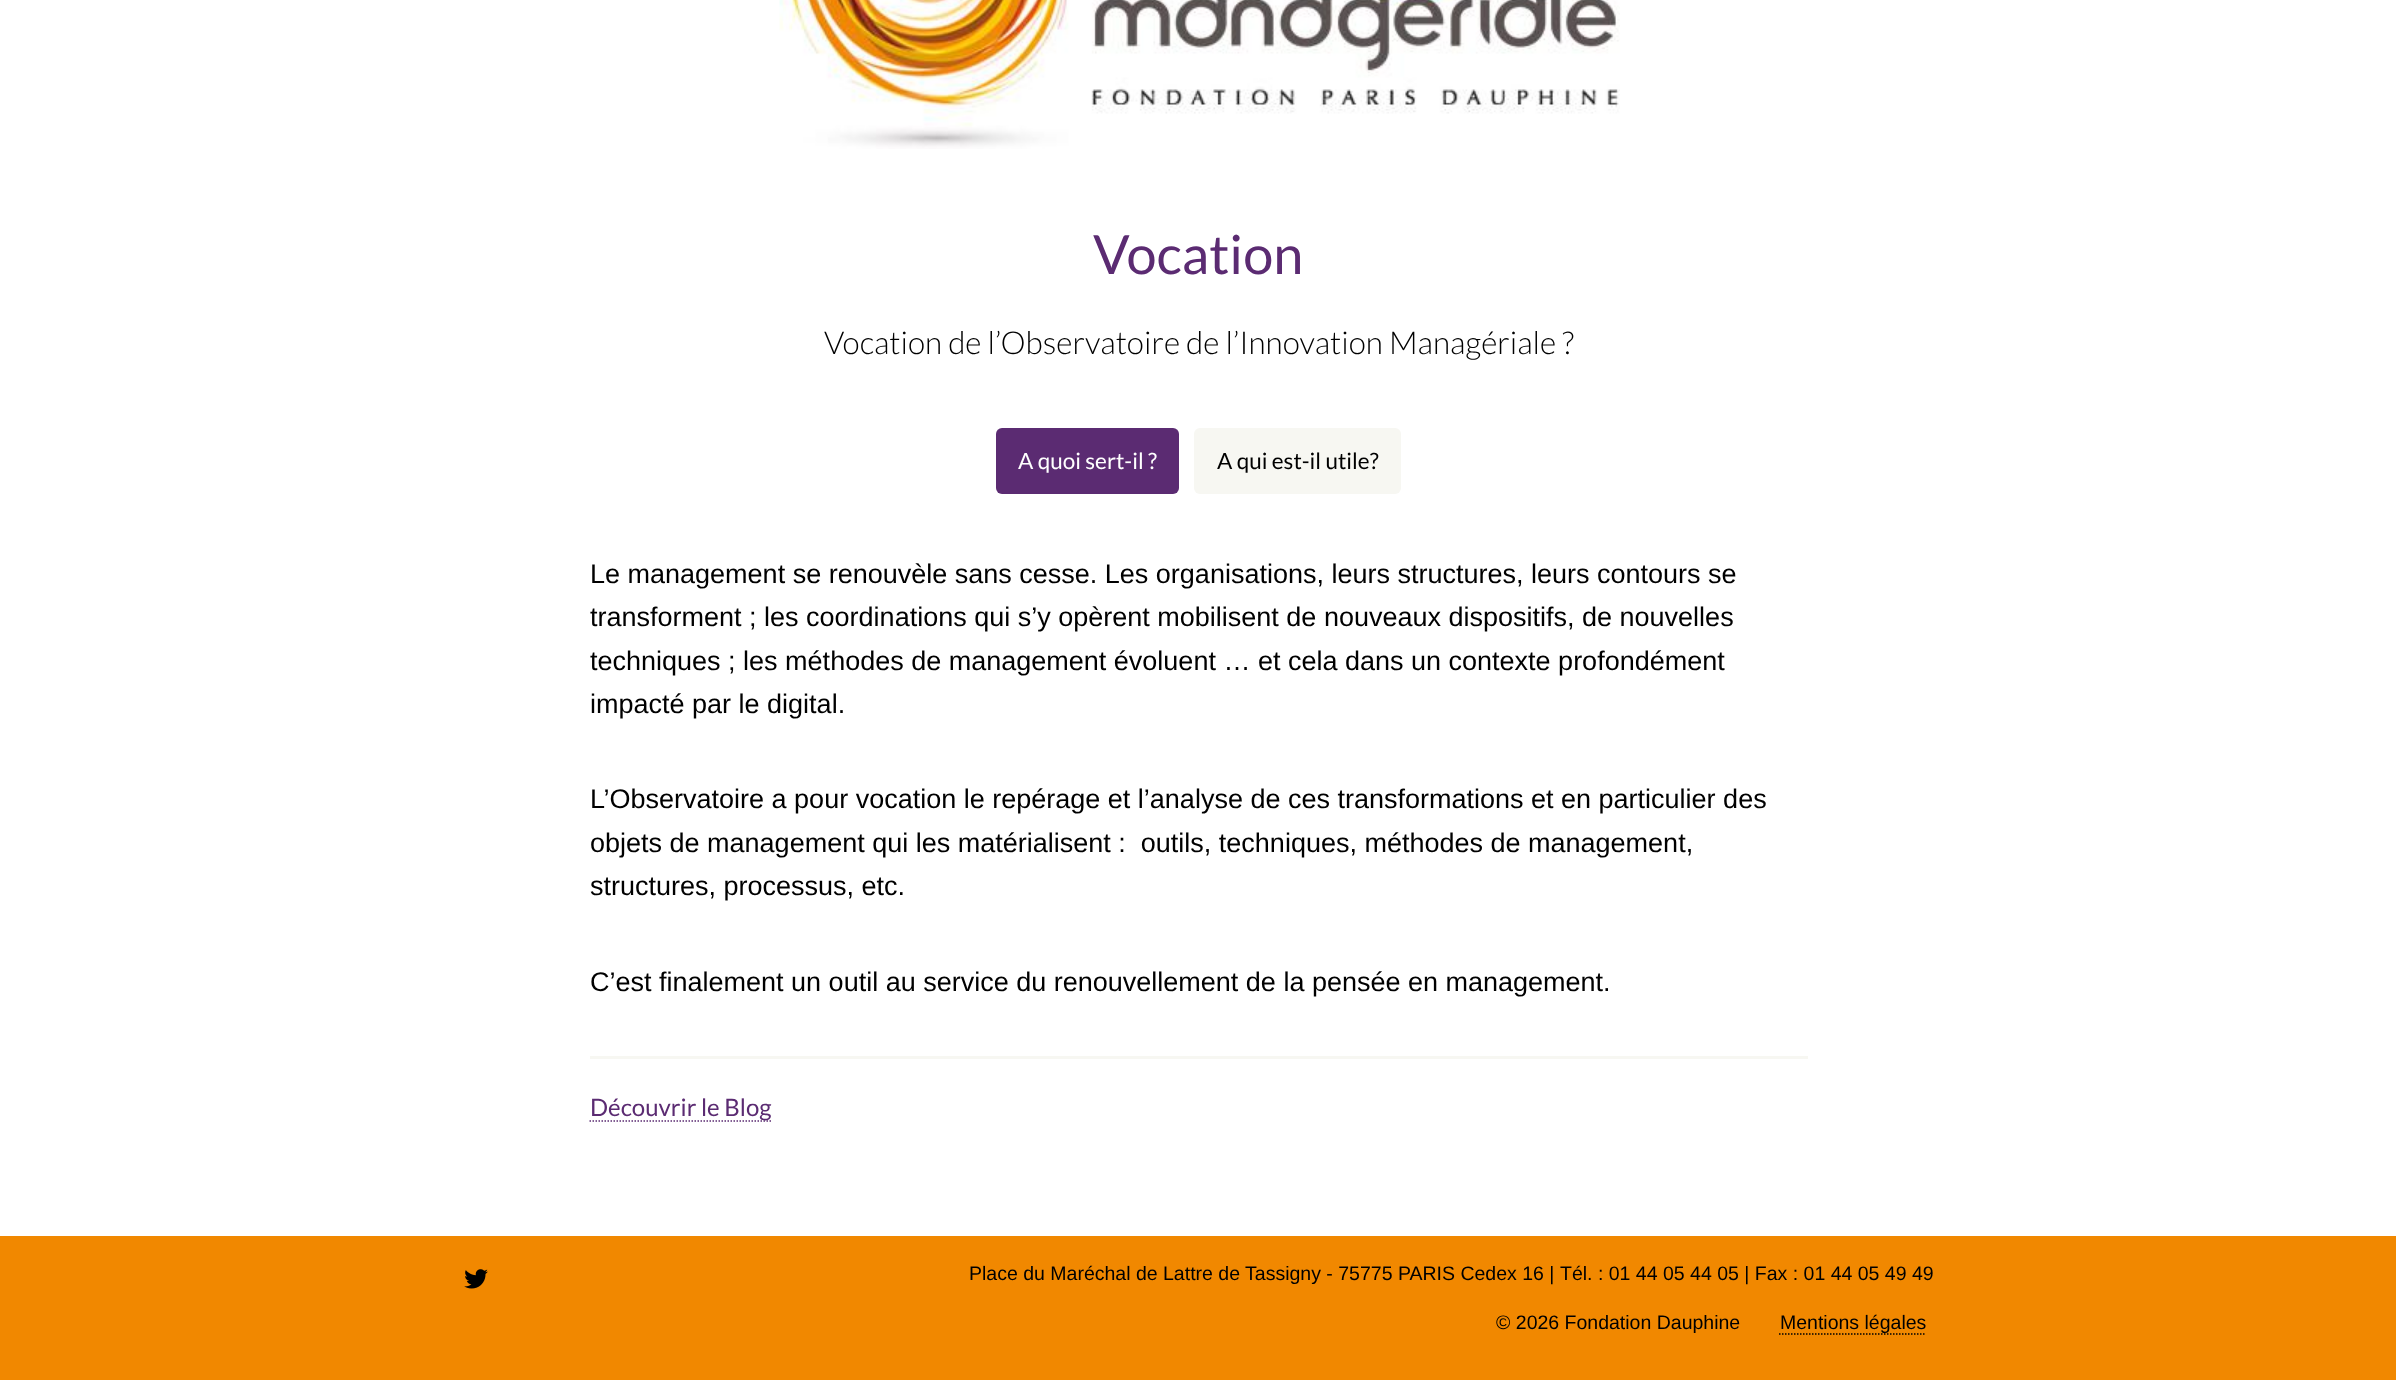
<?xml version="1.0" encoding="UTF-8"?>
<svg xmlns="http://www.w3.org/2000/svg" xmlns:xlink="http://www.w3.org/1999/xlink" width="2396" height="1380">
  <rect width="100%" height="100%" fill="#ffffff" />
  <image x="779" y="0" width="841" height="149" xlink:href="image1.png" />
  <rect x="996" y="428" width="183" height="66" rx="6" fill="#5b2b72" />
  <rect x="1194" y="428" width="207" height="66" rx="6" fill="#f7f7f2" />
  <rect x="590" y="1056" width="1218" height="3" fill="#f7f7f2" />
  <path d="M 589.5 1121 h 181.5" fill="none" stroke="#5b2b72" stroke-width="1.5" stroke-dasharray="1.5 1.5" />
  <rect y="1236" width="2396" height="144" fill="#f18800" />
  <image x="464" y="1269" width="24" height="20" xlink:href="image2.png" />
  <path d="M 1779 1334 h 147" fill="none" stroke="#000000" stroke-width="1.5" stroke-dasharray="1.5 1.5" />
  <text x="1093" y="274" style="font-family: Lato; font-size: 54px; fill: #5b2b72">Vocation</text>
  <text x="824" y="354" style="font-family: Lato; font-size: 31.5px; font-weight: 300; fill: #000000">Vocation de l’Observatoire de l’Innovation Managériale ?</text>
  <text x="1018" y="469" style="font-family: Lato; font-size: 22.5px; fill: #ffffff">A quoi sert-il ?</text>
  <text x="1217" y="469" style="font-family: Lato; font-size: 22.5px; fill: #000000">A qui est-il utile?</text>
  <text x="590" y="583" style="font-family: Liberation Sans; font-size: 27px; fill: #000000">Le management se renouvèle sans cesse. Les organisations, leurs structures, leurs contours se</text>
  <text x="590" y="626" style="font-family: Liberation Sans; font-size: 27px; fill: #000000">transforment ; les coordinations qui s’y opèrent mobilisent de nouveaux dispositifs, de nouvelles</text>
  <text x="590" y="670" style="font-family: Liberation Sans; font-size: 27px; fill: #000000">techniques ; les méthodes de management évoluent … et cela dans un contexte profondément</text>
  <text x="590" y="713" style="font-family: Liberation Sans; font-size: 27px; fill: #000000">impacté par le digital.</text>
  <text x="590" y="808" style="font-family: Liberation Sans; font-size: 27px; fill: #000000">L’Observatoire a pour vocation le repérage et l’analyse de ces transformations et en particulier des</text>
  <text x="590" y="852" style="font-family: Liberation Sans; font-size: 27px; fill: #000000" xml:space="preserve">objets de management qui les matérialisent :  outils, techniques, méthodes de management,</text>
  <text x="590" y="895" style="font-family: Liberation Sans; font-size: 27px; fill: #000000">structures, processus, etc.</text>
  <text x="590" y="991" style="font-family: Liberation Sans; font-size: 27px; fill: #000000">C’est finalement un outil au service du renouvellement de la pensée en management.</text>
  <text x="590" y="1116" style="font-family: Lato; font-size: 24px; fill: #5b2b72">Découvrir le Blog</text>
  <text x="969" y="1280" style="font-family: Liberation Sans; font-size: 19.5px; fill: #000000">Place du Maréchal de Lattre de Tassigny - 75775 PARIS Cedex 16 |</text>
  <text x="1560" y="1280" style="font-family: Liberation Sans; font-size: 19.5px; fill: #000000">Tél. : 01 44 05 44 05 | Fax : 01 44 05 49 49</text>
  <text x="1496" y="1329" style="font-family: Liberation Sans; font-size: 19.5px; fill: #000000">© 2026 Fondation Dauphine</text>
  <text x="1780" y="1329" style="font-family: Liberation Sans; font-size: 19.5px; fill: #000000">Mentions légales</text>
</svg>
